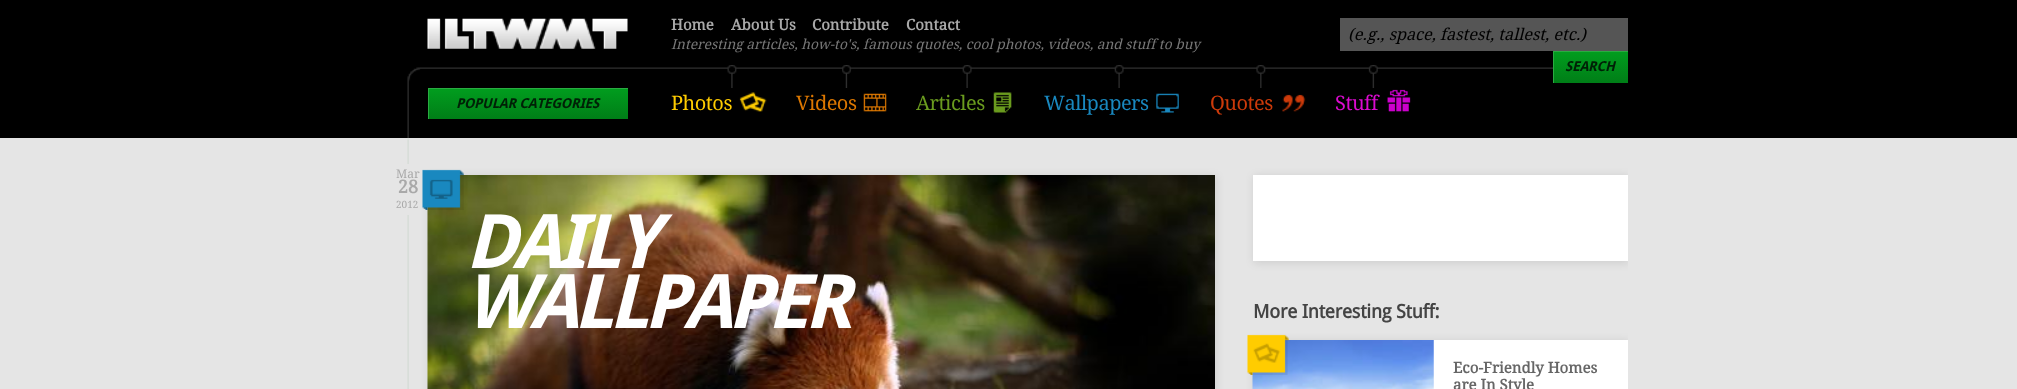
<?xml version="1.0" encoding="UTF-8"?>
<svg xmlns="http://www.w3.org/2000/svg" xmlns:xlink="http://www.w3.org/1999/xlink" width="2017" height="389">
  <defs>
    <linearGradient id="g1" gradientUnits="userSpaceOnUse" x1="1553" y1="51" x2="1553" y2="83"><stop offset="0.05" stop-color="#019c1e" /><stop offset="1" stop-color="#007e17" /></linearGradient>
    <clipPath id="clip1"><rect x="1553" y="51" width="75" height="32" /></clipPath>
    <linearGradient id="g2" gradientUnits="userSpaceOnUse" x1="428" y1="88" x2="428" y2="119"><stop offset="0.05" stop-color="#019c1e" /><stop offset="1" stop-color="#007e17" /></linearGradient>
    <clipPath id="clip2"><rect x="428" y="88" width="200" height="31" /></clipPath>
    <clipPath id="clip3"><rect x="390" y="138" width="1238" height="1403" /></clipPath>
  </defs>
  <rect width="100%" height="100%" fill="#e5e5e5" />
  <rect width="2017" height="138" fill="#000000" />
  <image x="407" y="138" width="2" height="251" xlink:href="image15.png" />
  <image x="407" y="67" width="1146" height="73" xlink:href="image1.png" />
  <image x="427" y="18" width="201" height="31" xlink:href="image2.png" />
  <rect x="1340" y="18" width="288" height="33" fill="#555555" />
  <rect x="1554" y="52" width="74" height="31" fill="url(#g1)" />
  <g clip-path="url(#clip1)">
    <path d="M 1429 -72 h 322 v 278 h -322 z m 125 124 h 75 v 32 h -75 z" fill="#2aab42" fill-rule="evenodd" />
  </g>
  <rect x="429" y="89" width="199" height="30" fill="url(#g2)" />
  <g clip-path="url(#clip2)">
    <path d="M 304 -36 h 447 v 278 h -447 z m 125 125 h 200 v 31 h -200 z" fill="#2aab42" fill-rule="evenodd" />
  </g>
  <image x="727" y="65" width="10" height="23" xlink:href="image3.png" />
  <image x="842" y="65" width="10" height="23" xlink:href="image4.png" />
  <image x="962" y="65" width="10" height="23" xlink:href="image5.png" />
  <image x="1114" y="65" width="10" height="23" xlink:href="image6.png" />
  <image x="1256" y="65" width="10" height="23" xlink:href="image7.png" />
  <image x="1368" y="65" width="10" height="23" xlink:href="image8.png" />
  <image x="739" y="92" width="28" height="20" xlink:href="image9.png" />
  <image x="863" y="93" width="24" height="19" xlink:href="image10.png" />
  <image x="993" y="92" width="19" height="21" xlink:href="image11.png" />
  <image x="1156" y="93" width="23" height="20" xlink:href="image12.png" />
  <image x="1282" y="94" width="24" height="18" xlink:href="image13.png" />
  <image x="1387" y="89" width="24" height="23" xlink:href="image14.png" />
  <rect x="429" y="176" width="787" height="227" fill="#000000" fill-opacity="0.1" filter="blur(4.5px)" />
  <rect x="407" y="164" width="2" height="51" fill="#e5e5e5" />
  <image x="427" y="175" width="788" height="214" xlink:href="image17.png" />
  <image x="422" y="169" width="42" height="41" xlink:href="image16.png" />
  <g clip-path="url(#clip3)">
    <rect x="1254" y="176" width="375" height="87" fill="#000000" fill-opacity="0.1" filter="blur(4.5px)" />
  </g>
  <rect x="1253" y="175" width="375" height="86" fill="#ffffff" />
  <g clip-path="url(#clip3)">
    <rect x="1254" y="341" width="375" height="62" fill="#000000" fill-opacity="0.1" filter="blur(4.5px)" />
  </g>
  <rect x="1433" y="340" width="195" height="49" fill="#ffffff" />
  <image x="1252" y="340" width="182" height="49" xlink:href="image19.png" />
  <image x="1247" y="334" width="42" height="41" xlink:href="image18.png" />
  <text x="671" y="30" style="font-family: Droid Serif; font-size: 15px; font-weight: bold; fill: #a9a9a9">Home</text>
  <text x="731" y="30" style="font-family: Droid Serif; font-size: 15px; font-weight: bold; fill: #a9a9a9">About Us</text>
  <text x="812" y="30" style="font-family: Droid Serif; font-size: 15px; font-weight: bold; fill: #a9a9a9">Contribute</text>
  <text x="906" y="30" style="font-family: Droid Serif; font-size: 15px; font-weight: bold; fill: #a9a9a9">Contact</text>
  <text x="671" y="49" style="font-family: Droid Serif; font-size: 13.75px; font-style: italic; fill: #777777">Interesting articles, how-to's, famous quotes, cool photos, videos, and stuff to buy</text>
  <text x="1348" y="40" style="font-family: Droid Serif; font-size: 16.25px; font-style: italic; fill: #000000">(e.g., space, fastest, tallest, etc.)</text>
  <text x="1565" y="71" style="font-family: Droid Sans; font-size: 13.75px; font-weight: bold; font-style: italic; letter-spacing: -0.25px; fill: #002006">SEARCH</text>
  <text x="456" y="108" style="font-family: Droid Sans; font-size: 13.75px; font-weight: bold; font-style: italic; letter-spacing: -0.25px; fill: #002006">POPULAR CATEGORIES</text>
  <text x="671" y="110" style="font-family: Droid Serif; font-size: 20px; letter-spacing: -0.5px; fill: #ffcc00">Photos</text>
  <text x="796" y="110" style="font-family: Droid Serif; font-size: 20px; letter-spacing: -0.5px; fill: #dc7700">Videos</text>
  <text x="916" y="110" style="font-family: Droid Serif; font-size: 20px; letter-spacing: -0.5px; fill: #6a9b1e">Articles</text>
  <text x="1044" y="110" style="font-family: Droid Serif; font-size: 20px; letter-spacing: -0.5px; fill: #1988bf">Wallpapers</text>
  <text x="1210" y="110" style="font-family: Droid Serif; font-size: 20px; letter-spacing: -0.5px; fill: #cc3a0a">Quotes</text>
  <text x="1335" y="110" style="font-family: Droid Serif; font-size: 20px; letter-spacing: -0.5px; fill: #db0bcf">Stuff</text>
  <text x="396" y="178" style="font-family: Droid Serif; font-size: 12px; fill: #a9a9a9">Mar</text>
  <text x="398" y="193" style="font-family: Droid Serif; font-size: 18px; font-weight: bold; fill: #a9a9a9">28</text>
  <text x="396" y="208" style="font-family: Droid Serif; font-size: 10px; fill: #a9a9a9">2012</text>
  <text x="465" y="268" style="font-family: Droid Sans; font-size: 75px; font-weight: bold; font-style: italic; letter-spacing: -5px; fill: #ffffff">DAILY</text>
  <text x="465" y="328" style="font-family: Droid Sans; font-size: 75px; font-weight: bold; font-style: italic; letter-spacing: -5px; fill: #ffffff">WALLPAPER</text>
  <text x="1253" y="318" style="font-family: Droid Sans; font-size: 19px; font-weight: bold; letter-spacing: -0.3px; fill: #444444">More Interesting Stuff:</text>
  <text x="1453" y="373" style="font-family: Droid Serif; font-size: 15px; font-weight: bold; fill: #666666">Eco-Friendly Homes</text>
  <text x="1453" y="390" style="font-family: Droid Serif; font-size: 15px; font-weight: bold; fill: #666666">are In Style</text>
</svg>
